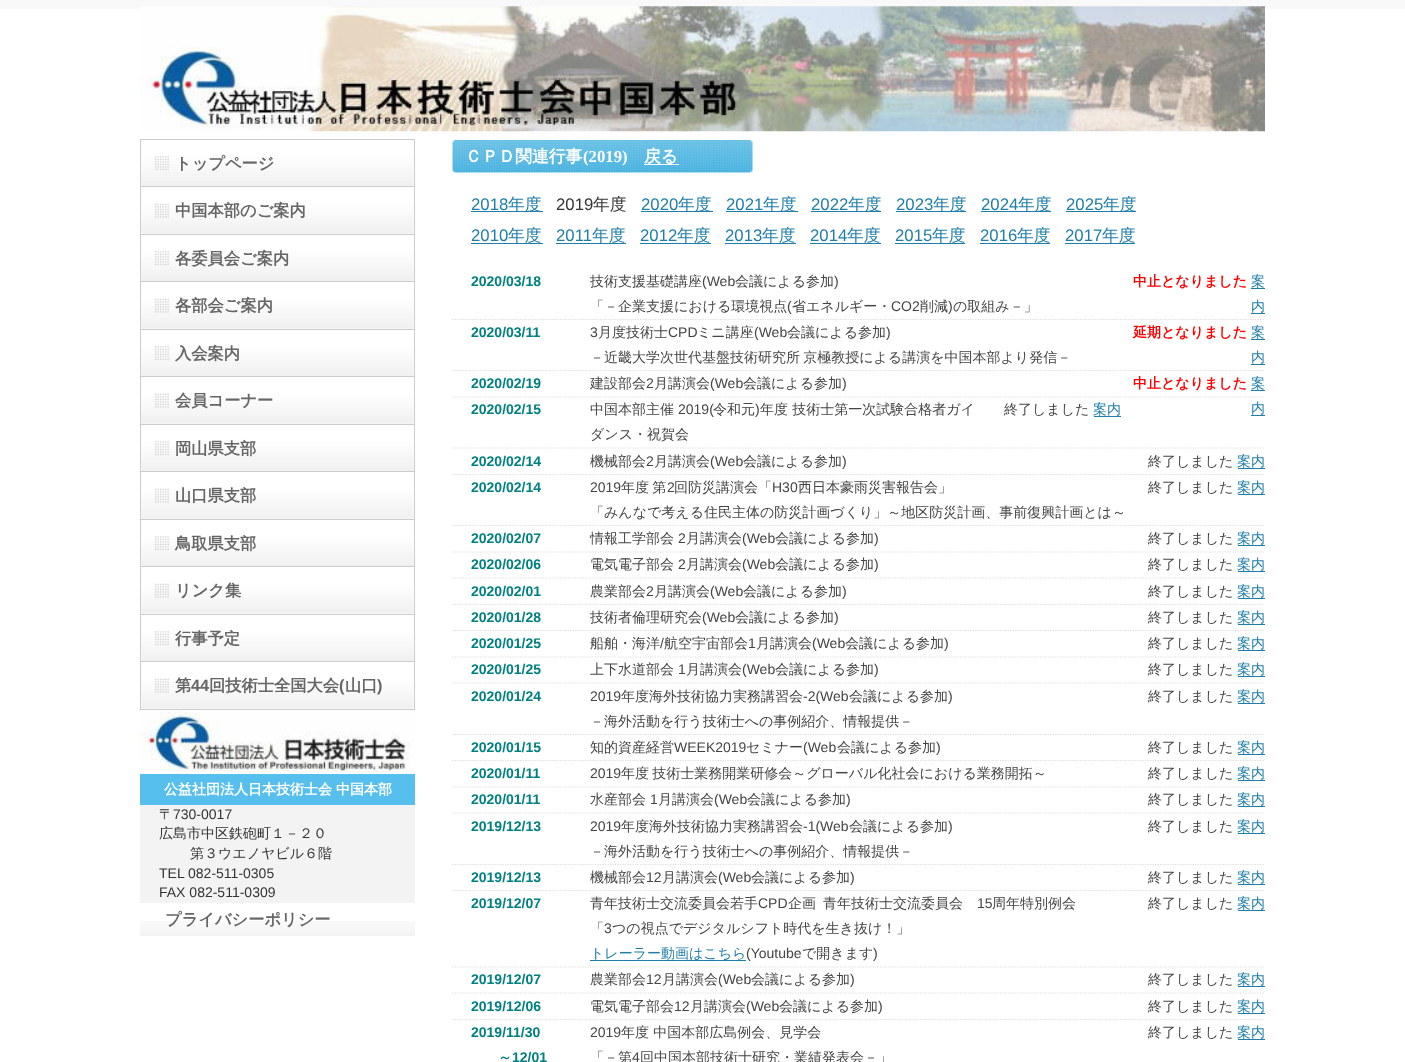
<?xml version="1.0" encoding="UTF-8"?>
<svg xmlns="http://www.w3.org/2000/svg" xmlns:xlink="http://www.w3.org/1999/xlink" width="1405" height="1062">
  <rect width="100%" height="100%" fill="#ffffff" />
  <rect width="1405" height="9" fill="#f9f9f9" />
  <image x="140" y="6" width="1125" height="126" xlink:href="image1.png" />
  <rect x="140" y="139" width="275" height="1" fill="#cccccc" />
  <rect x="414" y="140" width="1" height="570" fill="#cccccc" />
  <rect x="140" y="186" width="275" height="1" fill="#cccccc" />
  <rect x="140" y="140" width="1" height="48" fill="#cccccc" />
  <image x="141" y="156" width="273" height="30" xlink:href="image2.png" />
  <rect x="140" y="234" width="275" height="1" fill="#cccccc" />
  <rect x="140" y="188" width="1" height="47" fill="#cccccc" />
  <image x="141" y="203" width="273" height="31" xlink:href="image3.png" />
  <rect x="140" y="281" width="275" height="1" fill="#cccccc" />
  <rect x="140" y="235" width="1" height="48" fill="#cccccc" />
  <image x="141" y="251" width="273" height="30" xlink:href="image2.png" />
  <rect x="140" y="329" width="275" height="1" fill="#cccccc" />
  <rect x="140" y="283" width="1" height="47" fill="#cccccc" />
  <image x="141" y="298" width="273" height="31" xlink:href="image4.png" />
  <rect x="140" y="376" width="275" height="1" fill="#cccccc" />
  <rect x="140" y="330" width="1" height="48" fill="#cccccc" />
  <image x="141" y="346" width="273" height="30" xlink:href="image2.png" />
  <rect x="140" y="424" width="275" height="1" fill="#cccccc" />
  <rect x="140" y="378" width="1" height="47" fill="#cccccc" />
  <image x="141" y="393" width="273" height="31" xlink:href="image3.png" />
  <rect x="140" y="471" width="275" height="1" fill="#cccccc" />
  <rect x="140" y="425" width="1" height="48" fill="#cccccc" />
  <image x="141" y="441" width="273" height="30" xlink:href="image2.png" />
  <rect x="140" y="519" width="275" height="1" fill="#cccccc" />
  <rect x="140" y="473" width="1" height="47" fill="#cccccc" />
  <image x="141" y="488" width="273" height="31" xlink:href="image3.png" />
  <rect x="140" y="566" width="275" height="1" fill="#cccccc" />
  <rect x="140" y="520" width="1" height="48" fill="#cccccc" />
  <image x="141" y="536" width="273" height="30" xlink:href="image2.png" />
  <rect x="140" y="614" width="275" height="1" fill="#cccccc" />
  <rect x="140" y="568" width="1" height="47" fill="#cccccc" />
  <image x="141" y="583" width="273" height="31" xlink:href="image5.png" />
  <rect x="140" y="661" width="275" height="1" fill="#cccccc" />
  <rect x="140" y="615" width="1" height="48" fill="#cccccc" />
  <image x="141" y="631" width="273" height="30" xlink:href="image2.png" />
  <rect x="140" y="709" width="275" height="1" fill="#cccccc" />
  <rect x="140" y="663" width="1" height="47" fill="#cccccc" />
  <image x="141" y="678" width="273" height="31" xlink:href="image3.png" />
  <image x="452" y="140" width="301" height="33" xlink:href="image6.png" />
  <rect x="644" y="164" width="35" height="1" fill="#ffffff" />
  <rect x="471" y="211" width="72" height="1" fill="#1f7ea7" />
  <rect x="641" y="211" width="72" height="1" fill="#1f7ea7" />
  <rect x="726" y="211" width="72" height="1" fill="#1f7ea7" />
  <rect x="811" y="211" width="70" height="1" fill="#1f7ea7" />
  <rect x="896" y="211" width="70" height="1" fill="#1f7ea7" />
  <rect x="981" y="211" width="70" height="1" fill="#1f7ea7" />
  <rect x="1066" y="211" width="70" height="1" fill="#1f7ea7" />
  <rect x="471" y="243" width="72" height="1" fill="#1f7ea7" />
  <rect x="556" y="243" width="70" height="1" fill="#1f7ea7" />
  <rect x="640" y="243" width="71" height="1" fill="#1f7ea7" />
  <rect x="725" y="243" width="71" height="1" fill="#1f7ea7" />
  <rect x="810" y="243" width="71" height="1" fill="#1f7ea7" />
  <rect x="895" y="243" width="70" height="1" fill="#1f7ea7" />
  <rect x="980" y="243" width="70" height="1" fill="#1f7ea7" />
  <rect x="1065" y="243" width="70" height="1" fill="#1f7ea7" />
  <path d="M 452.5 319.5 h 812.5" fill="none" stroke="#dddddd" stroke-width="1.2" stroke-dasharray="1.25 1.25" />
  <rect x="1251" y="288" width="14" height="1" fill="#1f7ea7" />
  <rect x="1251" y="313" width="14" height="1" fill="#1f7ea7" />
  <path d="M 452.5 370.5 h 812.5" fill="none" stroke="#dddddd" stroke-width="1.2" stroke-dasharray="1.25 1.25" />
  <rect x="1251" y="339" width="14" height="1" fill="#1f7ea7" />
  <rect x="1251" y="364" width="14" height="1" fill="#1f7ea7" />
  <path d="M 452.5 397 h 812.5" fill="none" stroke="#dddddd" stroke-width="1.2" stroke-dasharray="1.25 1.25" />
  <rect x="1251" y="390" width="14" height="1" fill="#1f7ea7" />
  <rect x="1251" y="415" width="14" height="1" fill="#1f7ea7" />
  <path d="M 452.5 448 h 812.5" fill="none" stroke="#dddddd" stroke-width="1.2" stroke-dasharray="1.25 1.25" />
  <rect x="1094" y="416" width="27" height="1" fill="#1f7ea7" />
  <path d="M 452.5 474.5 h 812.5" fill="none" stroke="#dddddd" stroke-width="1.2" stroke-dasharray="1.25 1.25" />
  <rect x="1238" y="468" width="27" height="1" fill="#1f7ea7" />
  <path d="M 452.5 525.5 h 812.5" fill="none" stroke="#dddddd" stroke-width="1.2" stroke-dasharray="1.25 1.25" />
  <rect x="1238" y="494" width="27" height="1" fill="#1f7ea7" />
  <path d="M 452.5 552 h 812.5" fill="none" stroke="#dddddd" stroke-width="1.2" stroke-dasharray="1.25 1.25" />
  <rect x="1238" y="545" width="27" height="1" fill="#1f7ea7" />
  <path d="M 452.5 578 h 812.5" fill="none" stroke="#dddddd" stroke-width="1.2" stroke-dasharray="1.25 1.25" />
  <rect x="1238" y="571" width="27" height="1" fill="#1f7ea7" />
  <path d="M 452.5 604.5 h 812.5" fill="none" stroke="#dddddd" stroke-width="1.2" stroke-dasharray="1.25 1.25" />
  <rect x="1238" y="598" width="27" height="1" fill="#1f7ea7" />
  <path d="M 452.5 630.5 h 812.5" fill="none" stroke="#dddddd" stroke-width="1.2" stroke-dasharray="1.25 1.25" />
  <rect x="1238" y="624" width="27" height="1" fill="#1f7ea7" />
  <path d="M 452.5 657 h 812.5" fill="none" stroke="#dddddd" stroke-width="1.2" stroke-dasharray="1.25 1.25" />
  <rect x="1238" y="650" width="27" height="1" fill="#1f7ea7" />
  <path d="M 452.5 683 h 812.5" fill="none" stroke="#dddddd" stroke-width="1.2" stroke-dasharray="1.25 1.25" />
  <rect x="1238" y="676" width="27" height="1" fill="#1f7ea7" />
  <path d="M 452.5 734.5 h 812.5" fill="none" stroke="#dddddd" stroke-width="1.2" stroke-dasharray="1.25 1.25" />
  <rect x="1238" y="703" width="27" height="1" fill="#1f7ea7" />
  <path d="M 452.5 760.5 h 812.5" fill="none" stroke="#dddddd" stroke-width="1.2" stroke-dasharray="1.25 1.25" />
  <rect x="1238" y="754" width="27" height="1" fill="#1f7ea7" />
  <path d="M 452.5 787 h 812.5" fill="none" stroke="#dddddd" stroke-width="1.2" stroke-dasharray="1.25 1.25" />
  <rect x="1238" y="780" width="27" height="1" fill="#1f7ea7" />
  <path d="M 452.5 813 h 812.5" fill="none" stroke="#dddddd" stroke-width="1.2" stroke-dasharray="1.25 1.25" />
  <rect x="1238" y="806" width="27" height="1" fill="#1f7ea7" />
  <path d="M 452.5 864.5 h 812.5" fill="none" stroke="#dddddd" stroke-width="1.2" stroke-dasharray="1.25 1.25" />
  <rect x="1238" y="833" width="27" height="1" fill="#1f7ea7" />
  <path d="M 452.5 890.5 h 812.5" fill="none" stroke="#dddddd" stroke-width="1.2" stroke-dasharray="1.25 1.25" />
  <rect x="1238" y="884" width="27" height="1" fill="#1f7ea7" />
  <path d="M 452.5 967 h 812.5" fill="none" stroke="#dddddd" stroke-width="1.2" stroke-dasharray="1.25 1.25" />
  <rect x="590" y="960" width="156" height="1" fill="#1f7ea7" />
  <rect x="1238" y="910" width="27" height="1" fill="#1f7ea7" />
  <path d="M 452.5 993 h 812.5" fill="none" stroke="#dddddd" stroke-width="1.2" stroke-dasharray="1.25 1.25" />
  <rect x="1238" y="986" width="27" height="1" fill="#1f7ea7" />
  <path d="M 452.5 1019.5 h 812.5" fill="none" stroke="#dddddd" stroke-width="1.2" stroke-dasharray="1.25 1.25" />
  <rect x="1238" y="1013" width="27" height="1" fill="#1f7ea7" />
  <rect x="1238" y="1039" width="27" height="1" fill="#1f7ea7" />
  <image x="140" y="711" width="275" height="63" xlink:href="image7.png" />
  <rect x="140" y="805" width="275" height="98" fill="#f3f3f3" />
  <rect x="140" y="774" width="275" height="31" fill="#56bfed" />
  <image x="140" y="921" width="275" height="15" xlink:href="image8.png" />
  <text x="175" y="169" style="font-family: WenQuanYi Zen Hei; font-size: 16.25px; font-weight: bold; fill: #666666">トップページ</text>
  <text x="175" y="216" style="font-family: WenQuanYi Zen Hei; font-size: 16.25px; font-weight: bold; fill: #666666">中国本部のご案内</text>
  <text x="175" y="264" style="font-family: WenQuanYi Zen Hei; font-size: 16.25px; font-weight: bold; fill: #666666">各委員会ご案内</text>
  <text x="175" y="311" style="font-family: WenQuanYi Zen Hei; font-size: 16.25px; font-weight: bold; fill: #666666">各部会ご案内</text>
  <text x="175" y="359" style="font-family: WenQuanYi Zen Hei; font-size: 16.25px; font-weight: bold; fill: #666666">入会案内</text>
  <text x="175" y="406" style="font-family: WenQuanYi Zen Hei; font-size: 16.25px; font-weight: bold; fill: #666666">会員コーナー</text>
  <text x="175" y="454" style="font-family: WenQuanYi Zen Hei; font-size: 16.25px; font-weight: bold; fill: #666666">岡山県支部</text>
  <text x="175" y="501" style="font-family: WenQuanYi Zen Hei; font-size: 16.25px; font-weight: bold; fill: #666666">山口県支部</text>
  <text x="175" y="549" style="font-family: WenQuanYi Zen Hei; font-size: 16.25px; font-weight: bold; fill: #666666">鳥取県支部</text>
  <text x="175" y="596" style="font-family: WenQuanYi Zen Hei; font-size: 16.25px; font-weight: bold; fill: #666666">リンク集</text>
  <text x="175" y="644" style="font-family: WenQuanYi Zen Hei; font-size: 16.25px; font-weight: bold; fill: #666666">行事予定</text>
  <text x="175" y="691" style="font-family: WenQuanYi Zen Hei; font-size: 16.25px; font-weight: bold; fill: #666666">第</text>
  <text x="191" y="691" style="font-family: Liberation Sans; font-size: 16.25px; font-weight: bold; fill: #666666">44</text>
  <text x="209" y="691" style="font-family: WenQuanYi Zen Hei; font-size: 16.25px; font-weight: bold; fill: #666666">回技術士全国大会</text>
  <text x="339" y="691" style="font-family: Liberation Sans; font-size: 16.25px; font-weight: bold; fill: #666666">(</text>
  <text x="345" y="691" style="font-family: WenQuanYi Zen Hei; font-size: 16.25px; font-weight: bold; fill: #666666">山口</text>
  <text x="377" y="691" style="font-family: Liberation Sans; font-size: 16.25px; font-weight: bold; fill: #666666">)</text>
  <text x="465" y="162" style="font-family: WenQuanYi Zen Hei; font-size: 16.75px; font-weight: bold; fill: #ffffff">ＣＰＤ関連行事</text>
  <text x="583" y="162" style="font-family: Liberation Serif; font-size: 16.75px; font-weight: bold; fill: #ffffff">(2019)</text>
  <text x="644" y="162" style="font-family: WenQuanYi Zen Hei; font-size: 16.75px; font-weight: bold; fill: #ffffff">戻る</text>
  <text x="471" y="210" style="font-family: Liberation Sans; font-size: 16.75px; fill: #1f7ea7">2018</text>
  <text x="508" y="210" style="font-family: WenQuanYi Zen Hei; font-size: 16.75px; font-weight: 500; fill: #1f7ea7">年度</text>
  <text x="556" y="210" style="font-family: Liberation Sans; font-size: 16.75px; fill: #333333">2019</text>
  <text x="593" y="210" style="font-family: WenQuanYi Zen Hei; font-size: 16.75px; font-weight: 500; fill: #333333">年度</text>
  <text x="641" y="210" style="font-family: Liberation Sans; font-size: 16.75px; fill: #1f7ea7">2020</text>
  <text x="678" y="210" style="font-family: WenQuanYi Zen Hei; font-size: 16.75px; font-weight: 500; fill: #1f7ea7">年度</text>
  <text x="726" y="210" style="font-family: Liberation Sans; font-size: 16.75px; fill: #1f7ea7">2021</text>
  <text x="763" y="210" style="font-family: WenQuanYi Zen Hei; font-size: 16.75px; font-weight: 500; fill: #1f7ea7">年度</text>
  <text x="811" y="210" style="font-family: Liberation Sans; font-size: 16.75px; fill: #1f7ea7">2022</text>
  <text x="848" y="210" style="font-family: WenQuanYi Zen Hei; font-size: 16.75px; font-weight: 500; fill: #1f7ea7">年度</text>
  <text x="896" y="210" style="font-family: Liberation Sans; font-size: 16.75px; fill: #1f7ea7">2023</text>
  <text x="933" y="210" style="font-family: WenQuanYi Zen Hei; font-size: 16.75px; font-weight: 500; fill: #1f7ea7">年度</text>
  <text x="981" y="210" style="font-family: Liberation Sans; font-size: 16.75px; fill: #1f7ea7">2024</text>
  <text x="1018" y="210" style="font-family: WenQuanYi Zen Hei; font-size: 16.75px; font-weight: 500; fill: #1f7ea7">年度</text>
  <text x="1066" y="210" style="font-family: Liberation Sans; font-size: 16.75px; fill: #1f7ea7">2025</text>
  <text x="1103" y="210" style="font-family: WenQuanYi Zen Hei; font-size: 16.75px; font-weight: 500; fill: #1f7ea7">年度</text>
  <text x="471" y="241" style="font-family: Liberation Sans; font-size: 16.75px; fill: #1f7ea7">2010</text>
  <text x="508" y="241" style="font-family: WenQuanYi Zen Hei; font-size: 16.75px; font-weight: 500; fill: #1f7ea7">年度</text>
  <text x="556" y="241" style="font-family: Liberation Sans; font-size: 16.75px; fill: #1f7ea7">2011</text>
  <text x="592" y="241" style="font-family: WenQuanYi Zen Hei; font-size: 16.75px; font-weight: 500; fill: #1f7ea7">年度</text>
  <text x="640" y="241" style="font-family: Liberation Sans; font-size: 16.75px; fill: #1f7ea7">2012</text>
  <text x="677" y="241" style="font-family: WenQuanYi Zen Hei; font-size: 16.75px; font-weight: 500; fill: #1f7ea7">年度</text>
  <text x="725" y="241" style="font-family: Liberation Sans; font-size: 16.75px; fill: #1f7ea7">2013</text>
  <text x="762" y="241" style="font-family: WenQuanYi Zen Hei; font-size: 16.75px; font-weight: 500; fill: #1f7ea7">年度</text>
  <text x="810" y="241" style="font-family: Liberation Sans; font-size: 16.75px; fill: #1f7ea7">2014</text>
  <text x="847" y="241" style="font-family: WenQuanYi Zen Hei; font-size: 16.75px; font-weight: 500; fill: #1f7ea7">年度</text>
  <text x="895" y="241" style="font-family: Liberation Sans; font-size: 16.75px; fill: #1f7ea7">2015</text>
  <text x="932" y="241" style="font-family: WenQuanYi Zen Hei; font-size: 16.75px; font-weight: 500; fill: #1f7ea7">年度</text>
  <text x="980" y="241" style="font-family: Liberation Sans; font-size: 16.75px; fill: #1f7ea7">2016</text>
  <text x="1017" y="241" style="font-family: WenQuanYi Zen Hei; font-size: 16.75px; font-weight: 500; fill: #1f7ea7">年度</text>
  <text x="1065" y="241" style="font-family: Liberation Sans; font-size: 16.75px; fill: #1f7ea7">2017</text>
  <text x="1102" y="241" style="font-family: WenQuanYi Zen Hei; font-size: 16.75px; font-weight: 500; fill: #1f7ea7">年度</text>
  <text x="471" y="286" style="font-family: Liberation Sans; font-size: 14px; font-weight: bold; fill: #008080">2020/03/18</text>
  <text x="590" y="286" style="font-family: WenQuanYi Zen Hei; font-size: 14px; font-weight: 500; fill: #444444">技術支援基礎講座</text>
  <text x="702" y="286" style="font-family: Liberation Sans; font-size: 14px; fill: #444444">(Web</text>
  <text x="735" y="286" style="font-family: WenQuanYi Zen Hei; font-size: 14px; font-weight: 500; fill: #444444">会議による参加</text>
  <text x="834" y="286" style="font-family: Liberation Sans; font-size: 14px; fill: #444444">)</text>
  <text x="590" y="311" style="font-family: WenQuanYi Zen Hei; font-size: 14px; font-weight: 500; fill: #444444">「－企業支援における環境視点</text>
  <text x="787" y="311" style="font-family: Liberation Sans; font-size: 14px; fill: #444444">(</text>
  <text x="792" y="311" style="font-family: WenQuanYi Zen Hei; font-size: 14px; font-weight: 500; fill: #444444">省エネルギー・</text>
  <text x="891" y="311" style="font-family: Liberation Sans; font-size: 14px; fill: #444444">CO2</text>
  <text x="920" y="311" style="font-family: WenQuanYi Zen Hei; font-size: 14px; font-weight: 500; fill: #444444">削減</text>
  <text x="948" y="311" style="font-family: Liberation Sans; font-size: 14px; fill: #444444">)</text>
  <text x="953" y="311" style="font-family: WenQuanYi Zen Hei; font-size: 14px; font-weight: 500; fill: #444444">の取組み－」</text>
  <text x="1133" y="286" style="font-family: WenQuanYi Zen Hei; font-size: 14px; font-weight: bold; fill: #ff0000">中止となりました</text>
  <text x="1251" y="286" style="font-family: WenQuanYi Zen Hei; font-size: 14px; font-weight: 500; fill: #1f7ea7">案</text>
  <text x="1251" y="311" style="font-family: WenQuanYi Zen Hei; font-size: 14px; font-weight: 500; fill: #1f7ea7">内</text>
  <text x="471" y="337" style="font-family: Liberation Sans; font-size: 14px; font-weight: bold; fill: #008080">2020/03/11</text>
  <text x="590" y="337" style="font-family: Liberation Sans; font-size: 14px; fill: #444444">3</text>
  <text x="598" y="337" style="font-family: WenQuanYi Zen Hei; font-size: 14px; font-weight: 500; fill: #444444">月度技術士</text>
  <text x="668" y="337" style="font-family: Liberation Sans; font-size: 14px; fill: #444444">CPD</text>
  <text x="697" y="337" style="font-family: WenQuanYi Zen Hei; font-size: 14px; font-weight: 500; fill: #444444">ミニ講座</text>
  <text x="754" y="337" style="font-family: Liberation Sans; font-size: 14px; fill: #444444">(Web</text>
  <text x="787" y="337" style="font-family: WenQuanYi Zen Hei; font-size: 14px; font-weight: 500; fill: #444444">会議による参加</text>
  <text x="886" y="337" style="font-family: Liberation Sans; font-size: 14px; fill: #444444">)</text>
  <text x="590" y="362" word-spacing="-1" style="font-family: WenQuanYi Zen Hei; font-size: 14px; font-weight: 500; fill: #444444">－近畿大学次世代基盤技術研究所 京極教授による講演を中国本部より発信－</text>
  <text x="1133" y="337" style="font-family: WenQuanYi Zen Hei; font-size: 14px; font-weight: bold; fill: #ff0000">延期となりました</text>
  <text x="1251" y="337" style="font-family: WenQuanYi Zen Hei; font-size: 14px; font-weight: 500; fill: #1f7ea7">案</text>
  <text x="1251" y="362" style="font-family: WenQuanYi Zen Hei; font-size: 14px; font-weight: 500; fill: #1f7ea7">内</text>
  <text x="471" y="388" style="font-family: Liberation Sans; font-size: 14px; font-weight: bold; fill: #008080">2020/02/19</text>
  <text x="590" y="388" style="font-family: WenQuanYi Zen Hei; font-size: 14px; font-weight: 500; fill: #444444">建設部会</text>
  <text x="646" y="388" style="font-family: Liberation Sans; font-size: 14px; fill: #444444">2</text>
  <text x="654" y="388" style="font-family: WenQuanYi Zen Hei; font-size: 14px; font-weight: 500; fill: #444444">月講演会</text>
  <text x="710" y="388" style="font-family: Liberation Sans; font-size: 14px; fill: #444444">(Web</text>
  <text x="743" y="388" style="font-family: WenQuanYi Zen Hei; font-size: 14px; font-weight: 500; fill: #444444">会議による参加</text>
  <text x="842" y="388" style="font-family: Liberation Sans; font-size: 14px; fill: #444444">)</text>
  <text x="1133" y="388" style="font-family: WenQuanYi Zen Hei; font-size: 14px; font-weight: bold; fill: #ff0000">中止となりました</text>
  <text x="1251" y="388" style="font-family: WenQuanYi Zen Hei; font-size: 14px; font-weight: 500; fill: #1f7ea7">案</text>
  <text x="1251" y="413" style="font-family: WenQuanYi Zen Hei; font-size: 14px; font-weight: 500; fill: #1f7ea7">内</text>
  <text x="471" y="414" style="font-family: Liberation Sans; font-size: 14px; font-weight: bold; fill: #008080">2020/02/15</text>
  <text x="590" y="414" style="font-family: WenQuanYi Zen Hei; font-size: 14px; font-weight: 500; fill: #444444">中国本部主催</text>
  <text x="678" y="414" style="font-family: Liberation Sans; font-size: 14px; fill: #444444">2019(</text>
  <text x="713" y="414" style="font-family: WenQuanYi Zen Hei; font-size: 14px; font-weight: 500; fill: #444444">令和元</text>
  <text x="755" y="414" style="font-family: Liberation Sans; font-size: 14px; fill: #444444">)</text>
  <text x="760" y="414" style="font-family: WenQuanYi Zen Hei; font-size: 14px; font-weight: 500; fill: #444444">年度 技術士第一次試験合格者ガイ</text>
  <text x="590" y="439" style="font-family: WenQuanYi Zen Hei; font-size: 14px; font-weight: 500; fill: #444444">ダンス・祝賀会</text>
  <text x="1004" y="414" style="font-family: WenQuanYi Zen Hei; font-size: 14px; font-weight: 500; fill: #444444">終了しました</text>
  <text x="1093" y="414" style="font-family: WenQuanYi Zen Hei; font-size: 14px; font-weight: 500; fill: #1f7ea7">案内</text>
  <text x="471" y="466" style="font-family: Liberation Sans; font-size: 14px; font-weight: bold; fill: #008080">2020/02/14</text>
  <text x="590" y="466" style="font-family: WenQuanYi Zen Hei; font-size: 14px; font-weight: 500; fill: #444444">機械部会</text>
  <text x="646" y="466" style="font-family: Liberation Sans; font-size: 14px; fill: #444444">2</text>
  <text x="654" y="466" style="font-family: WenQuanYi Zen Hei; font-size: 14px; font-weight: 500; fill: #444444">月講演会</text>
  <text x="710" y="466" style="font-family: Liberation Sans; font-size: 14px; fill: #444444">(Web</text>
  <text x="743" y="466" style="font-family: WenQuanYi Zen Hei; font-size: 14px; font-weight: 500; fill: #444444">会議による参加</text>
  <text x="842" y="466" style="font-family: Liberation Sans; font-size: 14px; fill: #444444">)</text>
  <text x="1148" y="466" style="font-family: WenQuanYi Zen Hei; font-size: 14px; font-weight: 500; fill: #444444">終了しました</text>
  <text x="1237" y="466" style="font-family: WenQuanYi Zen Hei; font-size: 14px; font-weight: 500; fill: #1f7ea7">案内</text>
  <text x="471" y="492" style="font-family: Liberation Sans; font-size: 14px; font-weight: bold; fill: #008080">2020/02/14</text>
  <text x="590" y="492" style="font-family: Liberation Sans; font-size: 14px; fill: #444444">2019</text>
  <text x="621" y="492" word-spacing="-1" style="font-family: WenQuanYi Zen Hei; font-size: 14px; font-weight: 500; fill: #444444">年度 第</text>
  <text x="667" y="492" style="font-family: Liberation Sans; font-size: 14px; fill: #444444">2</text>
  <text x="674" y="492" style="font-family: WenQuanYi Zen Hei; font-size: 14px; font-weight: 500; fill: #444444">回防災講演会「</text>
  <text x="772" y="492" style="font-family: Liberation Sans; font-size: 14px; fill: #444444">H30</text>
  <text x="798" y="492" style="font-family: WenQuanYi Zen Hei; font-size: 14px; font-weight: 500; fill: #444444">西日本豪雨災害報告会」</text>
  <text x="590" y="517" style="font-family: WenQuanYi Zen Hei; font-size: 14px; font-weight: 500; fill: #444444">「みんなで考える住民主体の防災計画づくり」～地区防災計画、事前復興計画とは～</text>
  <text x="1148" y="492" style="font-family: WenQuanYi Zen Hei; font-size: 14px; font-weight: 500; fill: #444444">終了しました</text>
  <text x="1237" y="492" style="font-family: WenQuanYi Zen Hei; font-size: 14px; font-weight: 500; fill: #1f7ea7">案内</text>
  <text x="471" y="543" style="font-family: Liberation Sans; font-size: 14px; font-weight: bold; fill: #008080">2020/02/07</text>
  <text x="590" y="543" style="font-family: WenQuanYi Zen Hei; font-size: 14px; font-weight: 500; fill: #444444">情報工学部会</text>
  <text x="678" y="543" style="font-family: Liberation Sans; font-size: 14px; fill: #444444">2</text>
  <text x="686" y="543" style="font-family: WenQuanYi Zen Hei; font-size: 14px; font-weight: 500; fill: #444444">月講演会</text>
  <text x="742" y="543" style="font-family: Liberation Sans; font-size: 14px; fill: #444444">(Web</text>
  <text x="775" y="543" style="font-family: WenQuanYi Zen Hei; font-size: 14px; font-weight: 500; fill: #444444">会議による参加</text>
  <text x="874" y="543" style="font-family: Liberation Sans; font-size: 14px; fill: #444444">)</text>
  <text x="1148" y="543" style="font-family: WenQuanYi Zen Hei; font-size: 14px; font-weight: 500; fill: #444444">終了しました</text>
  <text x="1237" y="543" style="font-family: WenQuanYi Zen Hei; font-size: 14px; font-weight: 500; fill: #1f7ea7">案内</text>
  <text x="471" y="569" style="font-family: Liberation Sans; font-size: 14px; font-weight: bold; fill: #008080">2020/02/06</text>
  <text x="590" y="569" style="font-family: WenQuanYi Zen Hei; font-size: 14px; font-weight: 500; fill: #444444">電気電子部会</text>
  <text x="678" y="569" style="font-family: Liberation Sans; font-size: 14px; fill: #444444">2</text>
  <text x="686" y="569" style="font-family: WenQuanYi Zen Hei; font-size: 14px; font-weight: 500; fill: #444444">月講演会</text>
  <text x="742" y="569" style="font-family: Liberation Sans; font-size: 14px; fill: #444444">(Web</text>
  <text x="775" y="569" style="font-family: WenQuanYi Zen Hei; font-size: 14px; font-weight: 500; fill: #444444">会議による参加</text>
  <text x="874" y="569" style="font-family: Liberation Sans; font-size: 14px; fill: #444444">)</text>
  <text x="1148" y="569" style="font-family: WenQuanYi Zen Hei; font-size: 14px; font-weight: 500; fill: #444444">終了しました</text>
  <text x="1237" y="569" style="font-family: WenQuanYi Zen Hei; font-size: 14px; font-weight: 500; fill: #1f7ea7">案内</text>
  <text x="471" y="596" style="font-family: Liberation Sans; font-size: 14px; font-weight: bold; fill: #008080">2020/02/01</text>
  <text x="590" y="596" style="font-family: WenQuanYi Zen Hei; font-size: 14px; font-weight: 500; fill: #444444">農業部会</text>
  <text x="646" y="596" style="font-family: Liberation Sans; font-size: 14px; fill: #444444">2</text>
  <text x="654" y="596" style="font-family: WenQuanYi Zen Hei; font-size: 14px; font-weight: 500; fill: #444444">月講演会</text>
  <text x="710" y="596" style="font-family: Liberation Sans; font-size: 14px; fill: #444444">(Web</text>
  <text x="743" y="596" style="font-family: WenQuanYi Zen Hei; font-size: 14px; font-weight: 500; fill: #444444">会議による参加</text>
  <text x="842" y="596" style="font-family: Liberation Sans; font-size: 14px; fill: #444444">)</text>
  <text x="1148" y="596" style="font-family: WenQuanYi Zen Hei; font-size: 14px; font-weight: 500; fill: #444444">終了しました</text>
  <text x="1237" y="596" style="font-family: WenQuanYi Zen Hei; font-size: 14px; font-weight: 500; fill: #1f7ea7">案内</text>
  <text x="471" y="622" style="font-family: Liberation Sans; font-size: 14px; font-weight: bold; fill: #008080">2020/01/28</text>
  <text x="590" y="622" style="font-family: WenQuanYi Zen Hei; font-size: 14px; font-weight: 500; fill: #444444">技術者倫理研究会</text>
  <text x="702" y="622" style="font-family: Liberation Sans; font-size: 14px; fill: #444444">(Web</text>
  <text x="735" y="622" style="font-family: WenQuanYi Zen Hei; font-size: 14px; font-weight: 500; fill: #444444">会議による参加</text>
  <text x="834" y="622" style="font-family: Liberation Sans; font-size: 14px; fill: #444444">)</text>
  <text x="1148" y="622" style="font-family: WenQuanYi Zen Hei; font-size: 14px; font-weight: 500; fill: #444444">終了しました</text>
  <text x="1237" y="622" style="font-family: WenQuanYi Zen Hei; font-size: 14px; font-weight: 500; fill: #1f7ea7">案内</text>
  <text x="471" y="648" style="font-family: Liberation Sans; font-size: 14px; font-weight: bold; fill: #008080">2020/01/25</text>
  <text x="590" y="648" style="font-family: WenQuanYi Zen Hei; font-size: 14px; font-weight: 500; fill: #444444">船舶・海洋</text>
  <text x="660" y="648" style="font-family: Liberation Sans; font-size: 14px; fill: #444444">/</text>
  <text x="664" y="648" style="font-family: WenQuanYi Zen Hei; font-size: 14px; font-weight: 500; fill: #444444">航空宇宙部会</text>
  <text x="748" y="648" style="font-family: Liberation Sans; font-size: 14px; fill: #444444">1</text>
  <text x="756" y="648" style="font-family: WenQuanYi Zen Hei; font-size: 14px; font-weight: 500; fill: #444444">月講演会</text>
  <text x="812" y="648" style="font-family: Liberation Sans; font-size: 14px; fill: #444444">(Web</text>
  <text x="845" y="648" style="font-family: WenQuanYi Zen Hei; font-size: 14px; font-weight: 500; fill: #444444">会議による参加</text>
  <text x="944" y="648" style="font-family: Liberation Sans; font-size: 14px; fill: #444444">)</text>
  <text x="1148" y="648" style="font-family: WenQuanYi Zen Hei; font-size: 14px; font-weight: 500; fill: #444444">終了しました</text>
  <text x="1237" y="648" style="font-family: WenQuanYi Zen Hei; font-size: 14px; font-weight: 500; fill: #1f7ea7">案内</text>
  <text x="471" y="674" style="font-family: Liberation Sans; font-size: 14px; font-weight: bold; fill: #008080">2020/01/25</text>
  <text x="590" y="674" style="font-family: WenQuanYi Zen Hei; font-size: 14px; font-weight: 500; fill: #444444">上下水道部会</text>
  <text x="678" y="674" style="font-family: Liberation Sans; font-size: 14px; fill: #444444">1</text>
  <text x="686" y="674" style="font-family: WenQuanYi Zen Hei; font-size: 14px; font-weight: 500; fill: #444444">月講演会</text>
  <text x="742" y="674" style="font-family: Liberation Sans; font-size: 14px; fill: #444444">(Web</text>
  <text x="775" y="674" style="font-family: WenQuanYi Zen Hei; font-size: 14px; font-weight: 500; fill: #444444">会議による参加</text>
  <text x="874" y="674" style="font-family: Liberation Sans; font-size: 14px; fill: #444444">)</text>
  <text x="1148" y="674" style="font-family: WenQuanYi Zen Hei; font-size: 14px; font-weight: 500; fill: #444444">終了しました</text>
  <text x="1237" y="674" style="font-family: WenQuanYi Zen Hei; font-size: 14px; font-weight: 500; fill: #1f7ea7">案内</text>
  <text x="471" y="701" style="font-family: Liberation Sans; font-size: 14px; font-weight: bold; fill: #008080">2020/01/24</text>
  <text x="590" y="701" style="font-family: Liberation Sans; font-size: 14px; fill: #444444">2019</text>
  <text x="621" y="701" style="font-family: WenQuanYi Zen Hei; font-size: 14px; font-weight: 500; fill: #444444">年度海外技術協力実務講習会</text>
  <text x="803" y="701" style="font-family: Liberation Sans; font-size: 14px; fill: #444444">-2(Web</text>
  <text x="849" y="701" style="font-family: WenQuanYi Zen Hei; font-size: 14px; font-weight: 500; fill: #444444">会議による参加</text>
  <text x="948" y="701" style="font-family: Liberation Sans; font-size: 14px; fill: #444444">)</text>
  <text x="590" y="726" style="font-family: WenQuanYi Zen Hei; font-size: 14px; font-weight: 500; fill: #444444">－海外活動を行う技術士への事例紹介、情報提供－</text>
  <text x="1148" y="701" style="font-family: WenQuanYi Zen Hei; font-size: 14px; font-weight: 500; fill: #444444">終了しました</text>
  <text x="1237" y="701" style="font-family: WenQuanYi Zen Hei; font-size: 14px; font-weight: 500; fill: #1f7ea7">案内</text>
  <text x="471" y="752" style="font-family: Liberation Sans; font-size: 14px; font-weight: bold; fill: #008080">2020/01/15</text>
  <text x="590" y="752" style="font-family: WenQuanYi Zen Hei; font-size: 14px; font-weight: 500; fill: #444444">知的資産経営</text>
  <text x="674" y="752" style="font-family: Liberation Sans; font-size: 14px; fill: #444444">WEEK2019</text>
  <text x="746" y="752" style="font-family: WenQuanYi Zen Hei; font-size: 14px; font-weight: 500; fill: #444444">セミナー</text>
  <text x="803" y="752" style="font-family: Liberation Sans; font-size: 14px; fill: #444444">(Web</text>
  <text x="837" y="752" style="font-family: WenQuanYi Zen Hei; font-size: 14px; font-weight: 500; fill: #444444">会議による参加</text>
  <text x="936" y="752" style="font-family: Liberation Sans; font-size: 14px; fill: #444444">)</text>
  <text x="1148" y="752" style="font-family: WenQuanYi Zen Hei; font-size: 14px; font-weight: 500; fill: #444444">終了しました</text>
  <text x="1237" y="752" style="font-family: WenQuanYi Zen Hei; font-size: 14px; font-weight: 500; fill: #1f7ea7">案内</text>
  <text x="471" y="778" style="font-family: Liberation Sans; font-size: 14px; font-weight: bold; fill: #008080">2020/01/11</text>
  <text x="590" y="778" style="font-family: Liberation Sans; font-size: 14px; fill: #444444">2019</text>
  <text x="621" y="778" word-spacing="-1" style="font-family: WenQuanYi Zen Hei; font-size: 14px; font-weight: 500; fill: #444444">年度 技術士業務開業研修会～グローバル化社会における業務開拓～</text>
  <text x="1148" y="778" style="font-family: WenQuanYi Zen Hei; font-size: 14px; font-weight: 500; fill: #444444">終了しました</text>
  <text x="1237" y="778" style="font-family: WenQuanYi Zen Hei; font-size: 14px; font-weight: 500; fill: #1f7ea7">案内</text>
  <text x="471" y="804" style="font-family: Liberation Sans; font-size: 14px; font-weight: bold; fill: #008080">2020/01/11</text>
  <text x="590" y="804" style="font-family: WenQuanYi Zen Hei; font-size: 14px; font-weight: 500; fill: #444444">水産部会</text>
  <text x="650" y="804" style="font-family: Liberation Sans; font-size: 14px; fill: #444444">1</text>
  <text x="658" y="804" style="font-family: WenQuanYi Zen Hei; font-size: 14px; font-weight: 500; fill: #444444">月講演会</text>
  <text x="714" y="804" style="font-family: Liberation Sans; font-size: 14px; fill: #444444">(Web</text>
  <text x="747" y="804" style="font-family: WenQuanYi Zen Hei; font-size: 14px; font-weight: 500; fill: #444444">会議による参加</text>
  <text x="846" y="804" style="font-family: Liberation Sans; font-size: 14px; fill: #444444">)</text>
  <text x="1148" y="804" style="font-family: WenQuanYi Zen Hei; font-size: 14px; font-weight: 500; fill: #444444">終了しました</text>
  <text x="1237" y="804" style="font-family: WenQuanYi Zen Hei; font-size: 14px; font-weight: 500; fill: #1f7ea7">案内</text>
  <text x="471" y="831" style="font-family: Liberation Sans; font-size: 14px; font-weight: bold; fill: #008080">2019/12/13</text>
  <text x="590" y="831" style="font-family: Liberation Sans; font-size: 14px; fill: #444444">2019</text>
  <text x="621" y="831" style="font-family: WenQuanYi Zen Hei; font-size: 14px; font-weight: 500; fill: #444444">年度海外技術協力実務講習会</text>
  <text x="803" y="831" style="font-family: Liberation Sans; font-size: 14px; fill: #444444">-1(Web</text>
  <text x="849" y="831" style="font-family: WenQuanYi Zen Hei; font-size: 14px; font-weight: 500; fill: #444444">会議による参加</text>
  <text x="948" y="831" style="font-family: Liberation Sans; font-size: 14px; fill: #444444">)</text>
  <text x="590" y="856" style="font-family: WenQuanYi Zen Hei; font-size: 14px; font-weight: 500; fill: #444444">－海外活動を行う技術士への事例紹介、情報提供－</text>
  <text x="1148" y="831" style="font-family: WenQuanYi Zen Hei; font-size: 14px; font-weight: 500; fill: #444444">終了しました</text>
  <text x="1237" y="831" style="font-family: WenQuanYi Zen Hei; font-size: 14px; font-weight: 500; fill: #1f7ea7">案内</text>
  <text x="471" y="882" style="font-family: Liberation Sans; font-size: 14px; font-weight: bold; fill: #008080">2019/12/13</text>
  <text x="590" y="882" style="font-family: WenQuanYi Zen Hei; font-size: 14px; font-weight: 500; fill: #444444">機械部会</text>
  <text x="646" y="882" style="font-family: Liberation Sans; font-size: 14px; fill: #444444">12</text>
  <text x="662" y="882" style="font-family: WenQuanYi Zen Hei; font-size: 14px; font-weight: 500; fill: #444444">月講演会</text>
  <text x="718" y="882" style="font-family: Liberation Sans; font-size: 14px; fill: #444444">(Web</text>
  <text x="751" y="882" style="font-family: WenQuanYi Zen Hei; font-size: 14px; font-weight: 500; fill: #444444">会議による参加</text>
  <text x="850" y="882" style="font-family: Liberation Sans; font-size: 14px; fill: #444444">)</text>
  <text x="1148" y="882" style="font-family: WenQuanYi Zen Hei; font-size: 14px; font-weight: 500; fill: #444444">終了しました</text>
  <text x="1237" y="882" style="font-family: WenQuanYi Zen Hei; font-size: 14px; font-weight: 500; fill: #1f7ea7">案内</text>
  <text x="471" y="908" style="font-family: Liberation Sans; font-size: 14px; font-weight: bold; fill: #008080">2019/12/07</text>
  <text x="590" y="908" style="font-family: WenQuanYi Zen Hei; font-size: 14px; font-weight: 500; fill: #444444">青年技術士交流委員会若手</text>
  <text x="758" y="908" style="font-family: Liberation Sans; font-size: 14px; fill: #444444">CPD</text>
  <text x="788" y="908" style="font-family: WenQuanYi Zen Hei; font-size: 14px; font-weight: 500; fill: #444444">企画</text>
  <text x="823" y="908" style="font-family: WenQuanYi Zen Hei; font-size: 14px; font-weight: 500; fill: #444444">青年技術士交流委員会</text>
  <text x="977" y="908" style="font-family: Liberation Sans; font-size: 14px; fill: #444444">15</text>
  <text x="992" y="908" style="font-family: WenQuanYi Zen Hei; font-size: 14px; font-weight: 500; fill: #444444">周年特別例会</text>
  <text x="590" y="933" style="font-family: WenQuanYi Zen Hei; font-size: 14px; font-weight: 500; fill: #444444">「</text>
  <text x="604" y="933" style="font-family: Liberation Sans; font-size: 14px; fill: #444444">3</text>
  <text x="612" y="933" style="font-family: WenQuanYi Zen Hei; font-size: 14px; font-weight: 500; fill: #444444">つの視点でデジタルシフト時代を生き抜け！」</text>
  <text x="590" y="958" style="font-family: WenQuanYi Zen Hei; font-size: 14px; font-weight: 500; fill: #1f7ea7">トレーラー動画はこちら</text>
  <text x="746" y="958" style="font-family: Liberation Sans; font-size: 14px; fill: #444444">(Youtube</text>
  <text x="802" y="958" style="font-family: WenQuanYi Zen Hei; font-size: 14px; font-weight: 500; fill: #444444">で開きます</text>
  <text x="873" y="958" style="font-family: Liberation Sans; font-size: 14px; fill: #444444">)</text>
  <text x="1148" y="908" style="font-family: WenQuanYi Zen Hei; font-size: 14px; font-weight: 500; fill: #444444">終了しました</text>
  <text x="1237" y="908" style="font-family: WenQuanYi Zen Hei; font-size: 14px; font-weight: 500; fill: #1f7ea7">案内</text>
  <text x="471" y="984" style="font-family: Liberation Sans; font-size: 14px; font-weight: bold; fill: #008080">2019/12/07</text>
  <text x="590" y="984" style="font-family: WenQuanYi Zen Hei; font-size: 14px; font-weight: 500; fill: #444444">農業部会</text>
  <text x="646" y="984" style="font-family: Liberation Sans; font-size: 14px; fill: #444444">12</text>
  <text x="662" y="984" style="font-family: WenQuanYi Zen Hei; font-size: 14px; font-weight: 500; fill: #444444">月講演会</text>
  <text x="718" y="984" style="font-family: Liberation Sans; font-size: 14px; fill: #444444">(Web</text>
  <text x="751" y="984" style="font-family: WenQuanYi Zen Hei; font-size: 14px; font-weight: 500; fill: #444444">会議による参加</text>
  <text x="850" y="984" style="font-family: Liberation Sans; font-size: 14px; fill: #444444">)</text>
  <text x="1148" y="984" style="font-family: WenQuanYi Zen Hei; font-size: 14px; font-weight: 500; fill: #444444">終了しました</text>
  <text x="1237" y="984" style="font-family: WenQuanYi Zen Hei; font-size: 14px; font-weight: 500; fill: #1f7ea7">案内</text>
  <text x="471" y="1011" style="font-family: Liberation Sans; font-size: 14px; font-weight: bold; fill: #008080">2019/12/06</text>
  <text x="590" y="1011" style="font-family: WenQuanYi Zen Hei; font-size: 14px; font-weight: 500; fill: #444444">電気電子部会</text>
  <text x="674" y="1011" style="font-family: Liberation Sans; font-size: 14px; fill: #444444">12</text>
  <text x="690" y="1011" style="font-family: WenQuanYi Zen Hei; font-size: 14px; font-weight: 500; fill: #444444">月講演会</text>
  <text x="746" y="1011" style="font-family: Liberation Sans; font-size: 14px; fill: #444444">(Web</text>
  <text x="779" y="1011" style="font-family: WenQuanYi Zen Hei; font-size: 14px; font-weight: 500; fill: #444444">会議による参加</text>
  <text x="878" y="1011" style="font-family: Liberation Sans; font-size: 14px; fill: #444444">)</text>
  <text x="1148" y="1011" style="font-family: WenQuanYi Zen Hei; font-size: 14px; font-weight: 500; fill: #444444">終了しました</text>
  <text x="1237" y="1011" style="font-family: WenQuanYi Zen Hei; font-size: 14px; font-weight: 500; fill: #1f7ea7">案内</text>
  <text x="471" y="1037" style="font-family: Liberation Sans; font-size: 14px; font-weight: bold; fill: #008080">2019/11/30</text>
  <text x="498" y="1062" style="font-family: WenQuanYi Zen Hei; font-size: 14px; font-weight: bold; fill: #008080">～</text>
  <text x="512" y="1062" style="font-family: Liberation Sans; font-size: 14px; font-weight: bold; fill: #008080">12/01</text>
  <text x="590" y="1037" style="font-family: Liberation Sans; font-size: 14px; fill: #444444">2019</text>
  <text x="621" y="1037" style="font-family: WenQuanYi Zen Hei; font-size: 14px; font-weight: 500; fill: #444444">年度 中国本部広島例会、見学会</text>
  <text x="590" y="1062" style="font-family: WenQuanYi Zen Hei; font-size: 14px; font-weight: 500; fill: #444444">「－第</text>
  <text x="632" y="1062" style="font-family: Liberation Sans; font-size: 14px; fill: #444444">4</text>
  <text x="640" y="1062" style="font-family: WenQuanYi Zen Hei; font-size: 14px; font-weight: 500; fill: #444444">回中国本部技術士研究・業績発表会－」</text>
  <text x="1148" y="1037" style="font-family: WenQuanYi Zen Hei; font-size: 14px; font-weight: 500; fill: #444444">終了しました</text>
  <text x="1237" y="1037" style="font-family: WenQuanYi Zen Hei; font-size: 14px; font-weight: 500; fill: #1f7ea7">案内</text>
  <text x="164" y="794" style="font-family: WenQuanYi Zen Hei; font-size: 14px; font-weight: bold; fill: #ffffff">公益社団法人日本技術士会</text>
  <text x="336" y="794" style="font-family: WenQuanYi Zen Hei; font-size: 14px; font-weight: bold; fill: #ffffff">中国本部</text>
  <text x="159" y="819" style="font-family: WenQuanYi Zen Hei; font-size: 14px; font-weight: 500; fill: #333333">〒</text>
  <text x="173" y="819" style="font-family: Liberation Sans; font-size: 14px; fill: #333333">730-0017</text>
  <text x="159" y="838" style="font-family: WenQuanYi Zen Hei; font-size: 14px; font-weight: 500; fill: #333333">広島市中区鉄砲町１－２０</text>
  <text x="190" y="858" style="font-family: WenQuanYi Zen Hei; font-size: 14px; font-weight: 500; fill: #333333">第３ウエノヤビル６階</text>
  <text x="159" y="878" style="font-family: Liberation Sans; font-size: 14px; fill: #333333">TEL 082-511-0305</text>
  <text x="159" y="897" style="font-family: Liberation Sans; font-size: 14px; fill: #333333">FAX 082-511-0309</text>
  <text x="165" y="925" style="font-family: WenQuanYi Zen Hei; font-size: 16.25px; font-weight: bold; fill: #666666">プライバシーポリシー</text>
</svg>
